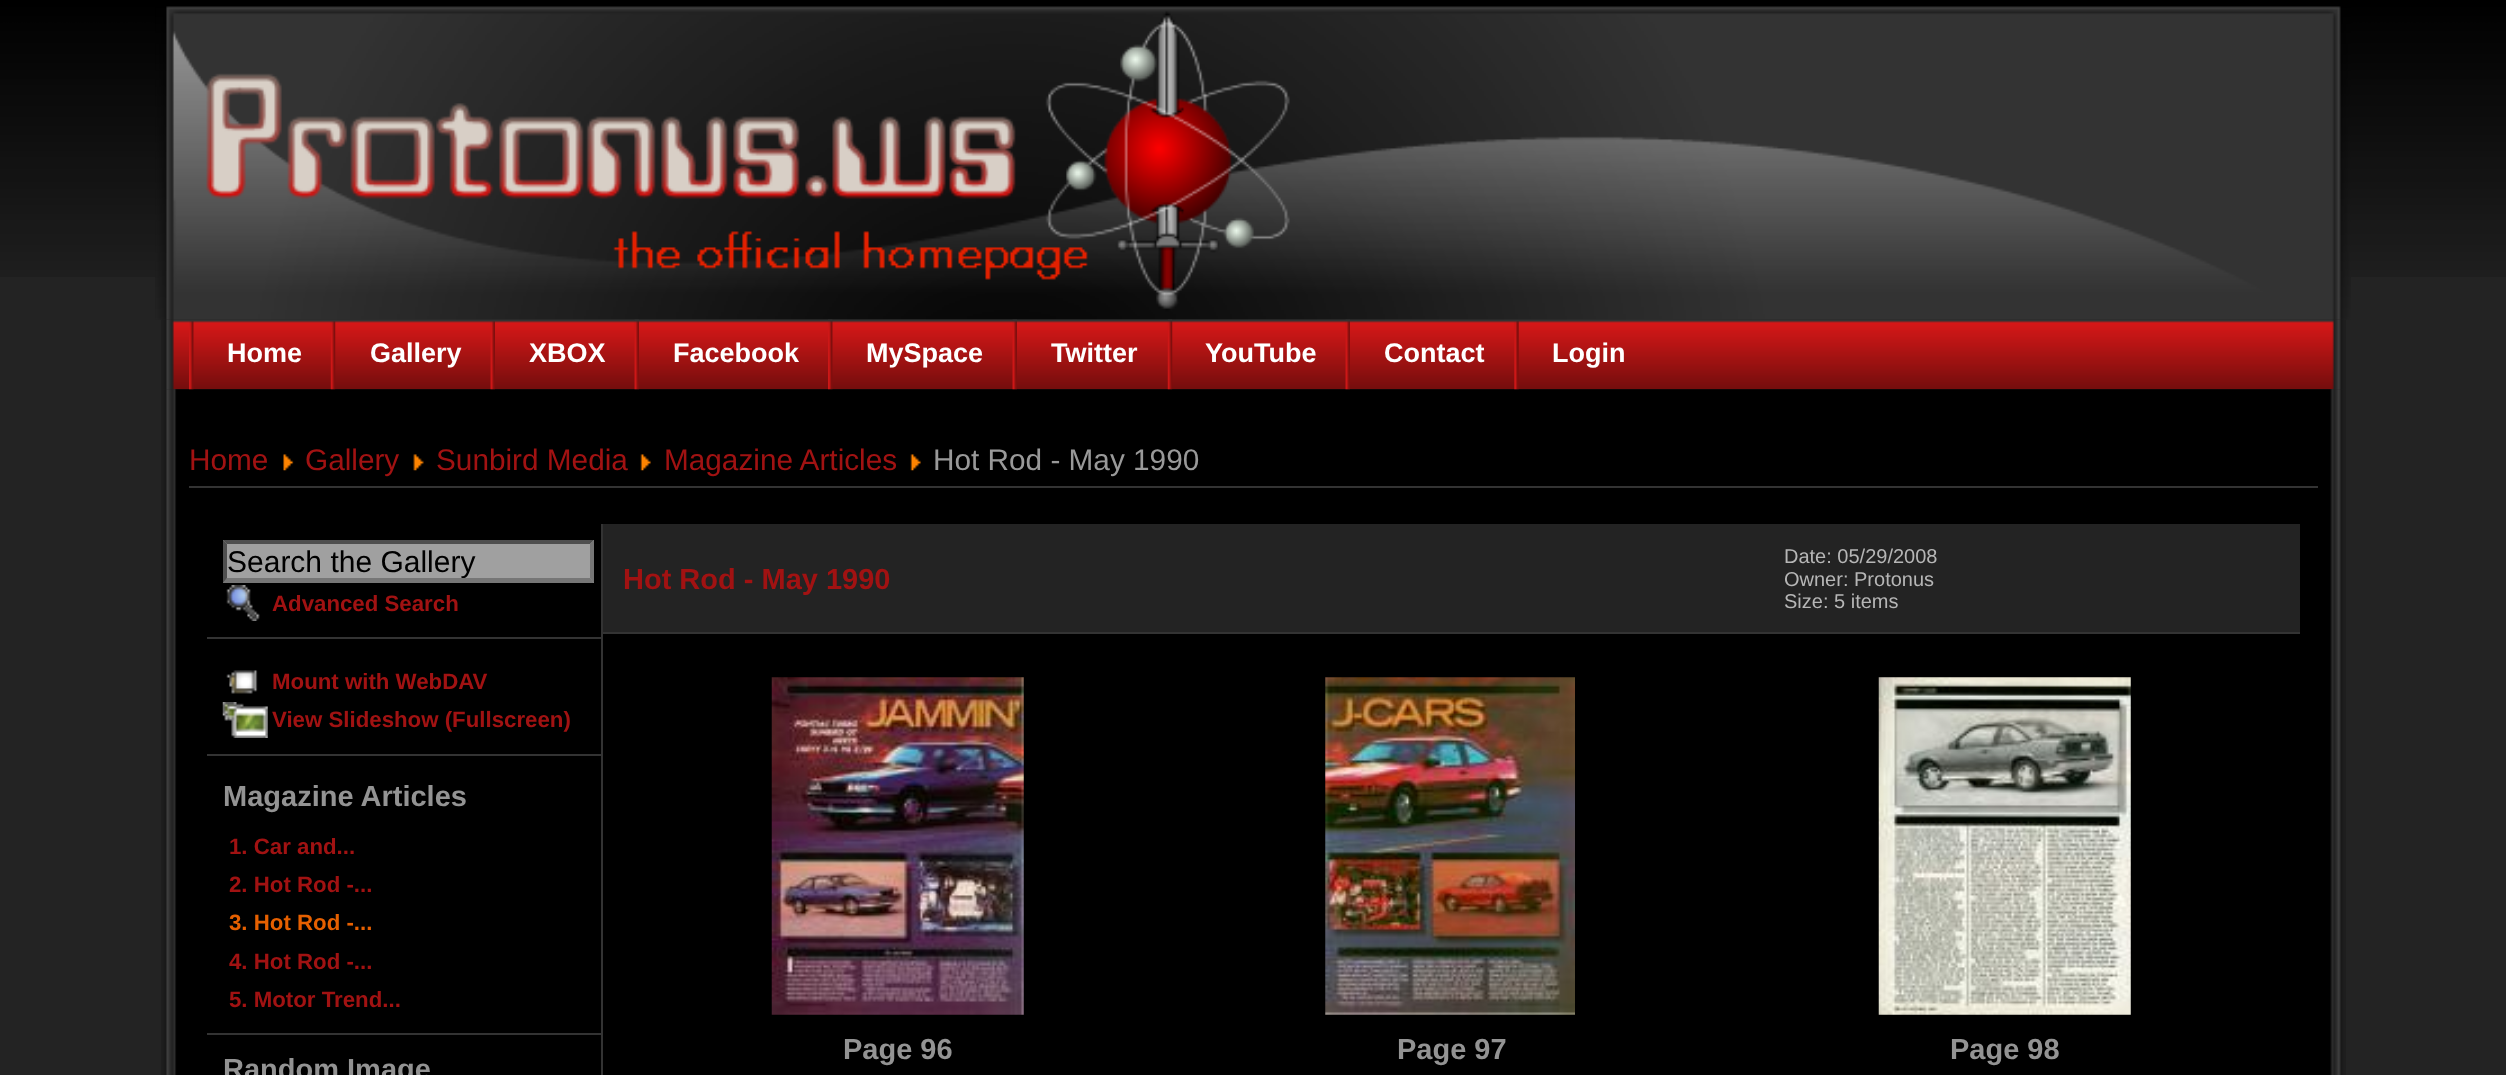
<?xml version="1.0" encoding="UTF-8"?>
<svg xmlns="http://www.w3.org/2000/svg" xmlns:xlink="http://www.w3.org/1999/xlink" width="2506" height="1075">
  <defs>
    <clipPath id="clip1"><rect x="227" y="545" width="363" height="33" /></clipPath>
  </defs>
  <rect width="100%" height="100%" fill="#232323" />
  <image x="0" y="0" width="2506" height="277" xlink:href="image1.png" />
  <image x="155" y="6" width="2196" height="314" xlink:href="image2.png" />
  <image x="161" y="319" width="2185" height="71" xlink:href="image3.png" />
  <image x="161" y="389" width="2185" height="686" xlink:href="image13.png" />
  <image x="189" y="321" width="5" height="69" xlink:href="image4.png" />
  <image x="330" y="321" width="6" height="69" xlink:href="image5.png" />
  <image x="490" y="321" width="5" height="69" xlink:href="image6.png" />
  <image x="634" y="319" width="5" height="71" xlink:href="image7.png" />
  <image x="828" y="319" width="5" height="71" xlink:href="image8.png" />
  <image x="1012" y="319" width="5" height="71" xlink:href="image9.png" />
  <image x="1167" y="319" width="6" height="71" xlink:href="image10.png" />
  <image x="1345" y="319" width="5" height="71" xlink:href="image11.png" />
  <image x="1514" y="321" width="5" height="69" xlink:href="image12.png" />
  <rect x="189" y="486" width="2129" height="2" fill="#333333" />
  <image x="283" y="454" width="11" height="17" xlink:href="image14.png" />
  <image x="413" y="454" width="11" height="17" xlink:href="image15.png" />
  <image x="640" y="454" width="11" height="17" xlink:href="image16.png" />
  <image x="910" y="454" width="11" height="17" xlink:href="image16.png" />
  <rect x="601" y="524" width="2" height="551" fill="#333333" />
  <rect x="207" y="637" width="394" height="2" fill="#333333" />
  <rect x="223" y="540" width="371" height="43" fill="#a0a0a0" />
  <path d="M 223 540 h 371 l -4 4 h -363 z" fill="#4f4f4f" />
  <path d="M 594 540 v 43 l -4 -5 v -34 z" fill="#767676" />
  <path d="M 594 583 h -371 l 4 -5 h 363 z" fill="#767676" />
  <path d="M 223 583 v -43 l 4 4 v 34 z" fill="#4f4f4f" />
  <image x="226" y="585" width="34" height="36" xlink:href="image17.png" />
  <rect x="207" y="754" width="394" height="2" fill="#333333" />
  <image x="226" y="670" width="32" height="24" xlink:href="image18.png" />
  <image x="222" y="702" width="46" height="36" xlink:href="image19.png" />
  <rect x="207" y="1033" width="394" height="2" fill="#333333" />
  <rect x="603" y="524" width="1697" height="108" fill="#232323" />
  <rect x="603" y="632" width="1697" height="2" fill="#333333" />
  <image x="771" y="677" width="253" height="338" xlink:href="image20.png" />
  <image x="1325" y="677" width="250" height="338" xlink:href="image21.png" />
  <image x="1878" y="677" width="253" height="338" xlink:href="image22.png" />
  <text x="227" y="362" style="font-family: Liberation Sans; font-size: 27px; font-weight: bold; fill: #ffffff">Home</text>
  <text x="370" y="362" style="font-family: Liberation Sans; font-size: 27px; font-weight: bold; fill: #ffffff">Gallery</text>
  <text x="529" y="362" style="font-family: Liberation Sans; font-size: 27px; font-weight: bold; fill: #ffffff">XBOX</text>
  <text x="673" y="362" style="font-family: Liberation Sans; font-size: 27px; font-weight: bold; fill: #ffffff">Facebook</text>
  <text x="866" y="362" style="font-family: Liberation Sans; font-size: 27px; font-weight: bold; fill: #ffffff">MySpace</text>
  <text x="1051" y="362" style="font-family: Liberation Sans; font-size: 27px; font-weight: bold; fill: #ffffff">Twitter</text>
  <text x="1205" y="362" style="font-family: Liberation Sans; font-size: 27px; font-weight: bold; fill: #ffffff">YouTube</text>
  <text x="1384" y="362" style="font-family: Liberation Sans; font-size: 27px; font-weight: bold; fill: #ffffff">Contact</text>
  <text x="1552" y="362" style="font-family: Liberation Sans; font-size: 27px; font-weight: bold; fill: #ffffff">Login</text>
  <text x="189" y="470" style="font-family: Liberation Sans; font-size: 29.75px; fill: #a11212">Home</text>
  <text x="305" y="470" style="font-family: Liberation Sans; font-size: 29.75px; fill: #a11212">Gallery</text>
  <text x="436" y="470" style="font-family: Liberation Sans; font-size: 29.75px; fill: #a11212">Sunbird Media</text>
  <text x="664" y="470" style="font-family: Liberation Sans; font-size: 29.75px; fill: #a11212">Magazine Articles</text>
  <text x="933" y="470" style="font-family: Liberation Sans; font-size: 29.75px; fill: #999999">Hot Rod - May 1990</text>
  <g clip-path="url(#clip1)">
    <text x="227" y="572" style="font-family: Liberation Sans; font-size: 30px; fill: #000000">Search the Gallery</text>
  </g>
  <text x="272" y="611" style="font-family: Liberation Sans; font-size: 22.25px; font-weight: bold; fill: #a11212">Advanced Search</text>
  <text x="272" y="689" style="font-family: Liberation Sans; font-size: 22.25px; font-weight: bold; fill: #a11212">Mount with WebDAV</text>
  <text x="272" y="727" style="font-family: Liberation Sans; font-size: 22.25px; font-weight: bold; fill: #a11212">View Slideshow (Fullscreen)</text>
  <text x="223" y="806" style="font-family: Liberation Sans; font-size: 29px; font-weight: bold; fill: #939393">Magazine Articles</text>
  <text x="229" y="854" style="font-family: Liberation Sans; font-size: 22.25px; font-weight: bold; fill: #a11212">1. Car and...</text>
  <text x="229" y="892" style="font-family: Liberation Sans; font-size: 22.25px; font-weight: bold; fill: #a11212">2. Hot Rod -...</text>
  <text x="229" y="930" style="font-family: Liberation Sans; font-size: 22.25px; font-weight: bold; fill: #e66000">3. Hot Rod -...</text>
  <text x="229" y="969" style="font-family: Liberation Sans; font-size: 22.25px; font-weight: bold; fill: #a11212">4. Hot Rod -...</text>
  <text x="229" y="1007" style="font-family: Liberation Sans; font-size: 22.25px; font-weight: bold; fill: #a11212">5. Motor Trend...</text>
  <text x="223" y="1079" style="font-family: Liberation Sans; font-size: 29px; font-weight: bold; fill: #939393">Random Image</text>
  <text x="623" y="589" style="font-family: Liberation Sans; font-size: 29px; font-weight: bold; fill: #a11212">Hot Rod - May 1990</text>
  <text x="1784" y="563" style="font-family: Liberation Sans; font-size: 20px; fill: #b6b6b6">Date: 05/29/2008</text>
  <text x="1784" y="586" style="font-family: Liberation Sans; font-size: 20px; fill: #b6b6b6">Owner: Protonus</text>
  <text x="1784" y="608" style="font-family: Liberation Sans; font-size: 20px; fill: #b6b6b6">Size: 5 items</text>
  <text x="843" y="1059" style="font-family: Liberation Sans; font-size: 29px; font-weight: bold; fill: #939393">Page 96</text>
  <text x="1397" y="1059" style="font-family: Liberation Sans; font-size: 29px; font-weight: bold; fill: #939393">Page 97</text>
  <text x="1950" y="1059" style="font-family: Liberation Sans; font-size: 29px; font-weight: bold; fill: #939393">Page 98</text>
</svg>
